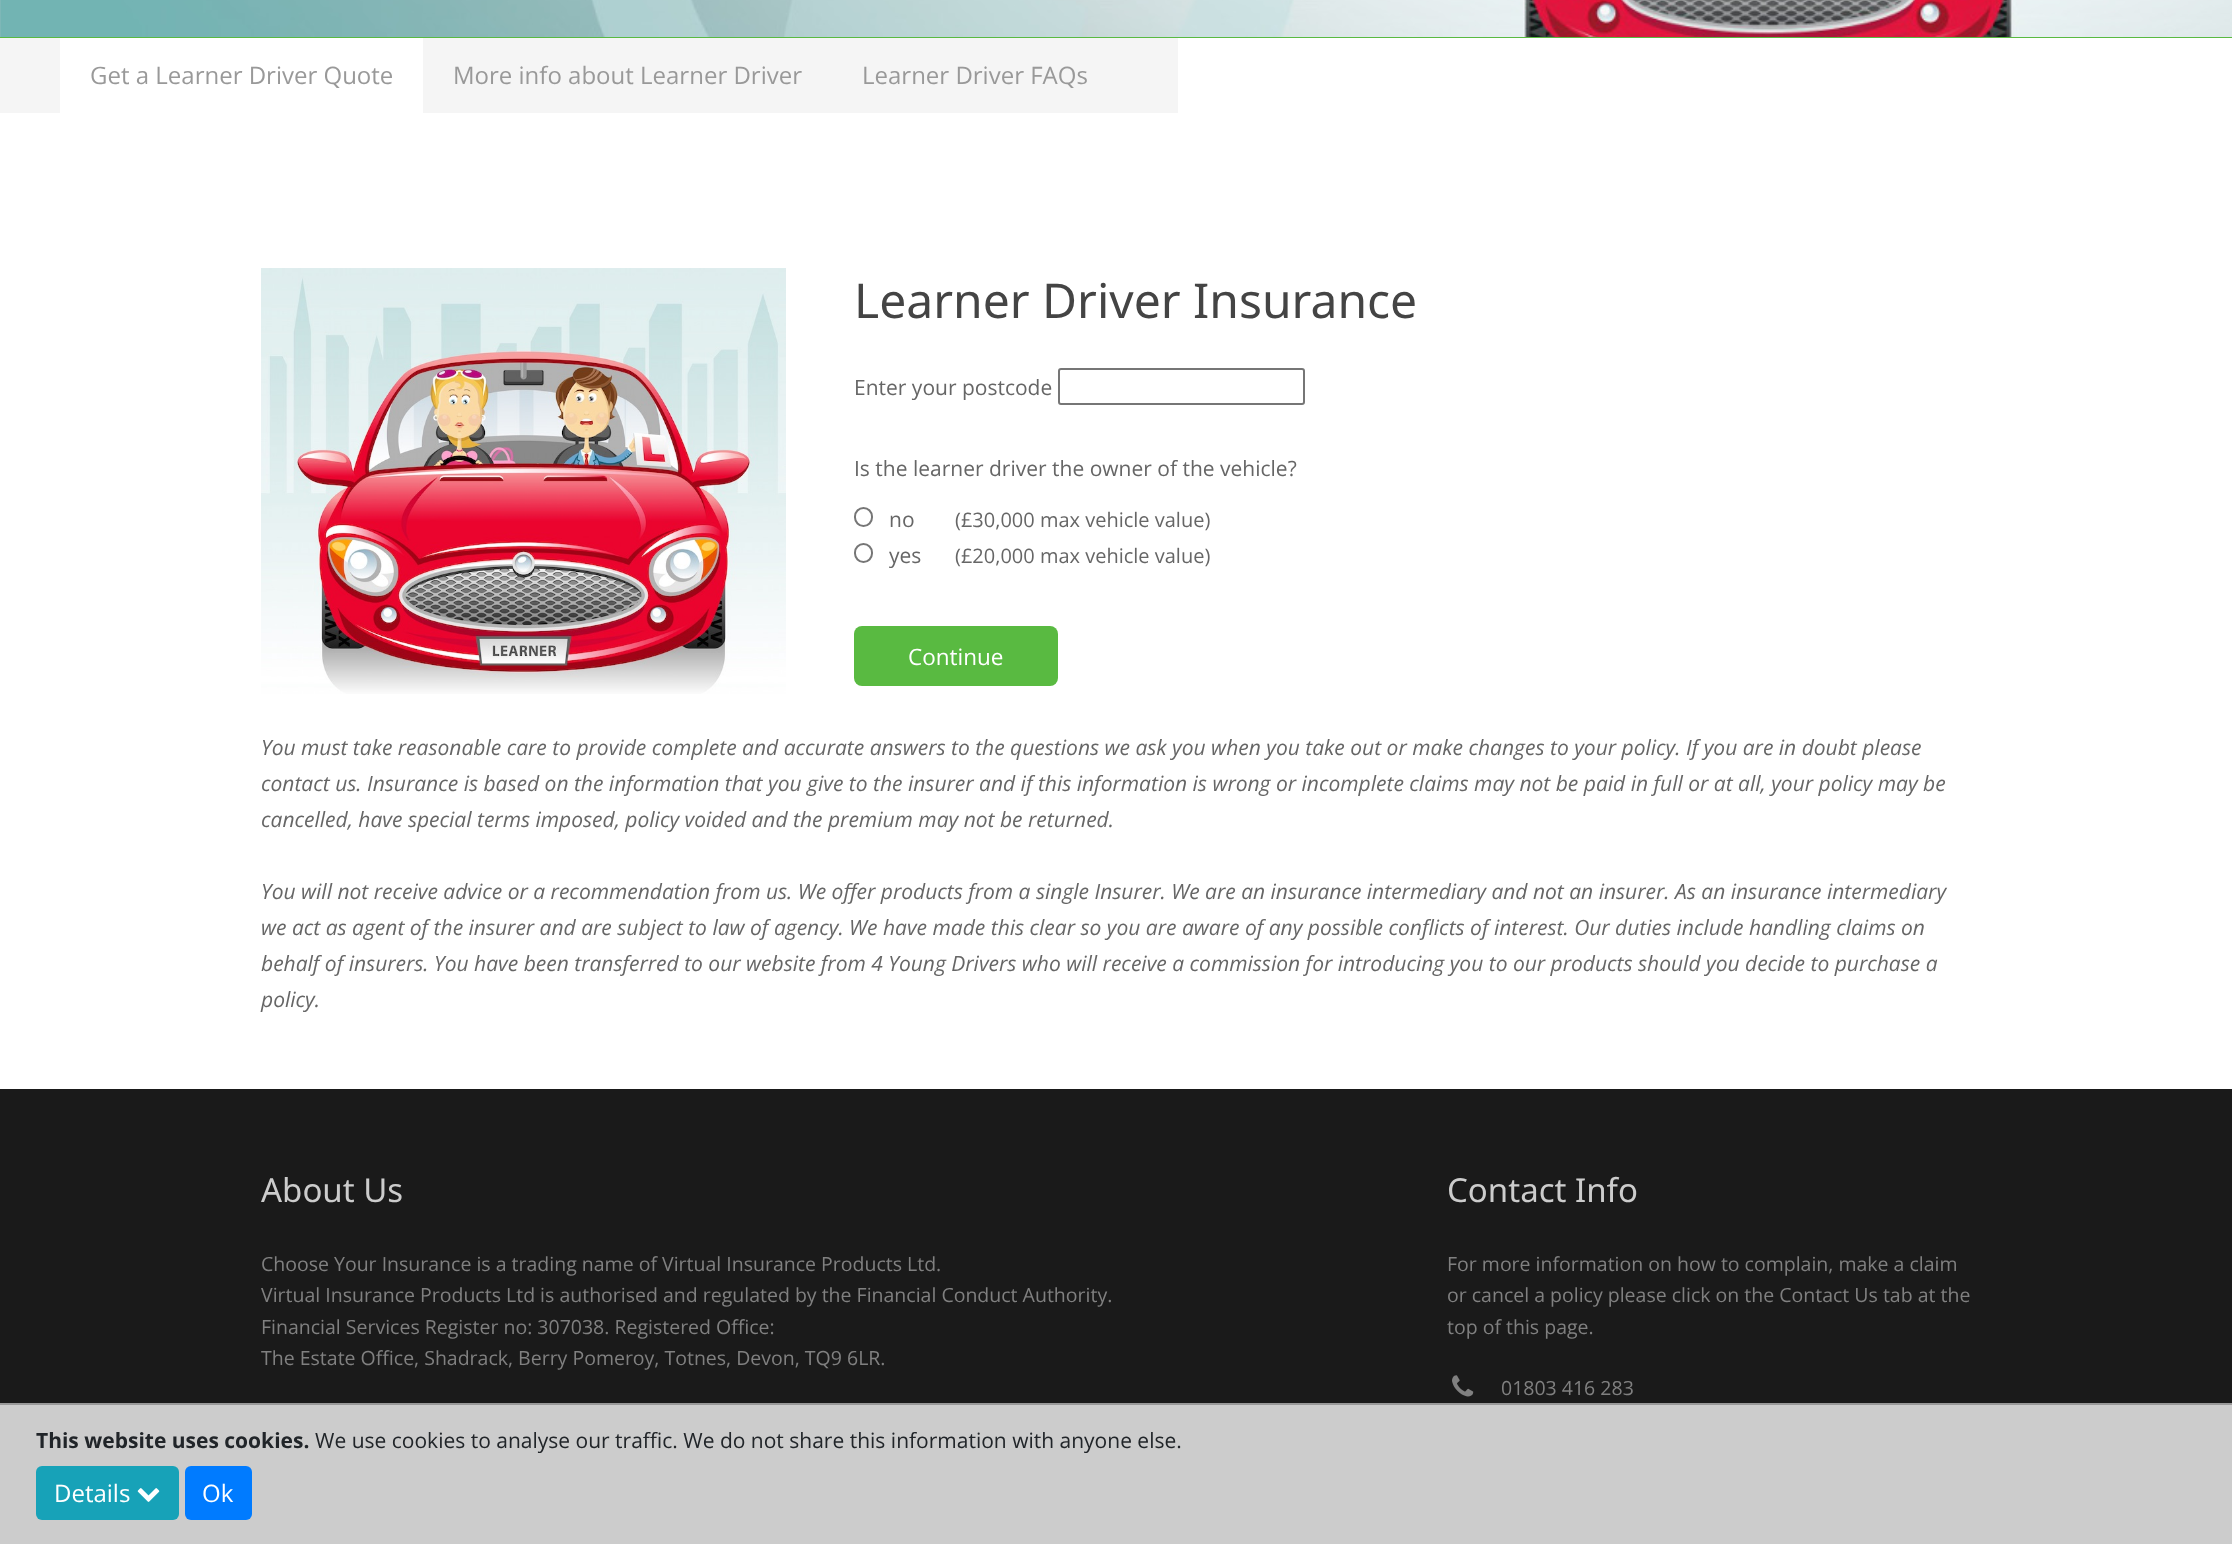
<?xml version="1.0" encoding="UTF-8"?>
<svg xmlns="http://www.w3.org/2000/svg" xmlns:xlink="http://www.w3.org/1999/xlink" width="2232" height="1544">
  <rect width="100%" height="100%" fill="#ffffff" />
  <rect y="37" width="2232" height="1" fill="#59ba41" />
  <image x="0" y="0" width="2232" height="37" xlink:href="image1.png" />
  <rect y="38" width="1178" height="75" fill="#f5f5f5" />
  <rect x="60" y="38" width="363" height="75" fill="#ffffff" />
  <image x="261" y="268" width="525" height="426" xlink:href="image2.png" />
  <rect x="1059" y="369" width="245" height="35" rx="2" fill="none" stroke="#767676" stroke-width="2" />
  <rect x="855" y="508" width="17" height="18" rx="8.5" fill="none" stroke="#767676" stroke-width="2" />
  <rect x="855" y="544" width="17" height="18" rx="8.5" fill="none" stroke="#767676" stroke-width="2" />
  <rect x="854" y="626" width="204" height="60" rx="8" fill="#59ba41" />
  <rect y="1089" width="2232" height="314" fill="#1a1a1a" />
  <image x="1452" y="1375" width="22" height="22" xlink:href="image3.png" />
  <rect y="1405" width="2232" height="139" fill="#cccccc" />
  <rect y="1403" width="2232" height="2" fill="#999999" />
  <rect x="36" y="1466" width="143" height="54" rx="6" fill="#17a2b8" />
  <image x="137" y="1488" width="23" height="14" xlink:href="image4.png" />
  <rect x="185" y="1466" width="67" height="54" rx="6" fill="#007bff" />
  <text x="90" y="84" style="font-family: Open Sans; font-size: 24px; fill: #999999">Get a Learner Driver Quote</text>
  <text x="453" y="84" style="font-family: Open Sans; font-size: 24px; fill: #999999">More info about Learner Driver</text>
  <text x="862" y="84" style="font-family: Open Sans; font-size: 24px; fill: #999999">Learner Driver FAQs</text>
  <text x="854" y="318" style="font-family: Noto Sans; font-size: 48px; fill: #444444">Learner Driver Insurance</text>
  <text x="854" y="395" style="font-family: Open Sans; font-size: 21px; fill: #666666">Enter your postcode</text>
  <text x="854" y="476" style="font-family: Open Sans; font-size: 21px; fill: #666666">Is the learner driver the owner of the vehicle?</text>
  <text x="889" y="527" style="font-family: Open Sans; font-size: 21px; fill: #666666">no</text>
  <text x="955" y="527" style="font-family: Open Sans; font-size: 20px; fill: #666666">(£30,000 max vehicle value)</text>
  <text x="889" y="563" style="font-family: Open Sans; font-size: 21px; fill: #666666">yes</text>
  <text x="955" y="563" style="font-family: Open Sans; font-size: 20px; fill: #666666">(£20,000 max vehicle value)</text>
  <text x="908" y="665" style="font-family: Open Sans; font-size: 22.5px; fill: #ffffff">Continue</text>
  <text x="261" y="755" style="font-family: Open Sans; font-size: 21px; font-style: italic; fill: #666666">You must take reasonable care to provide complete and accurate answers to the questions we ask you when you take out or make changes to your policy. If you are in doubt please</text>
  <text x="261" y="791" style="font-family: Open Sans; font-size: 21px; font-style: italic; fill: #666666">contact us. Insurance is based on the information that you give to the insurer and if this information is wrong or incomplete claims may not be paid in full or at all, your policy may be</text>
  <text x="261" y="827" style="font-family: Open Sans; font-size: 21px; font-style: italic; fill: #666666">cancelled, have special terms imposed, policy voided and the premium may not be returned.</text>
  <text x="261" y="899" style="font-family: Open Sans; font-size: 21px; font-style: italic; fill: #666666">You will not receive advice or a recommendation from us. We offer products from a single Insurer. We are an insurance intermediary and not an insurer. As an insurance intermediary</text>
  <text x="261" y="935" style="font-family: Open Sans; font-size: 21px; font-style: italic; fill: #666666">we act as agent of the insurer and are subject to law of agency. We have made this clear so you are aware of any possible conflicts of interest. Our duties include handling claims on</text>
  <text x="261" y="971" style="font-family: Open Sans; font-size: 21px; font-style: italic; fill: #666666">behalf of insurers. You have been transferred to our website from 4 Young Drivers who will receive a commission for introducing you to our products should you decide to purchase a</text>
  <text x="261" y="1007" style="font-family: Open Sans; font-size: 21px; font-style: italic; fill: #666666">policy.</text>
  <text x="261" y="1202" style="font-family: Noto Sans; font-size: 33px; fill: #cccccc">About Us</text>
  <text x="261" y="1271" style="font-family: Open Sans; font-size: 19.5px; fill: #808080">Choose Your Insurance is a trading name of Virtual Insurance Products Ltd.</text>
  <text x="261" y="1302" style="font-family: Open Sans; font-size: 19.5px; fill: #808080">Virtual Insurance Products Ltd is authorised and regulated by the Financial Conduct Authority.</text>
  <text x="261" y="1334" style="font-family: Open Sans; font-size: 19.5px; fill: #808080">Financial Services Register no: 307038. Registered Office:</text>
  <text x="261" y="1365" style="font-family: Open Sans; font-size: 19.5px; fill: #808080">The Estate Office, Shadrack, Berry Pomeroy, Totnes, Devon, TQ9 6LR.</text>
  <text x="1447" y="1202" style="font-family: Noto Sans; font-size: 33px; fill: #cccccc">Contact Info</text>
  <text x="1447" y="1271" style="font-family: Open Sans; font-size: 19.5px; fill: #808080">For more information on how to complain, make a claim</text>
  <text x="1447" y="1302" style="font-family: Open Sans; font-size: 19.5px; fill: #808080">or cancel a policy please click on the Contact Us tab at the</text>
  <text x="1447" y="1334" style="font-family: Open Sans; font-size: 19.5px; fill: #808080">top of this page.</text>
  <text x="1501" y="1395" style="font-family: Open Sans; font-size: 19.5px; fill: #808080">01803 416 283</text>
  <text x="36" y="1448" style="font-family: Open Sans; font-size: 21px; font-weight: bold; fill: #212529">This website uses cookies.</text>
  <text x="315" y="1448" style="font-family: Open Sans; font-size: 21px; fill: #212529">We use cookies to analyse our traffic. We do not share this information with anyone else.</text>
  <text x="54" y="1502" style="font-family: Open Sans; font-size: 24px; fill: #ffffff">Details</text>
  <text x="202" y="1502" style="font-family: Open Sans; font-size: 24px; fill: #ffffff">Ok</text>
</svg>
